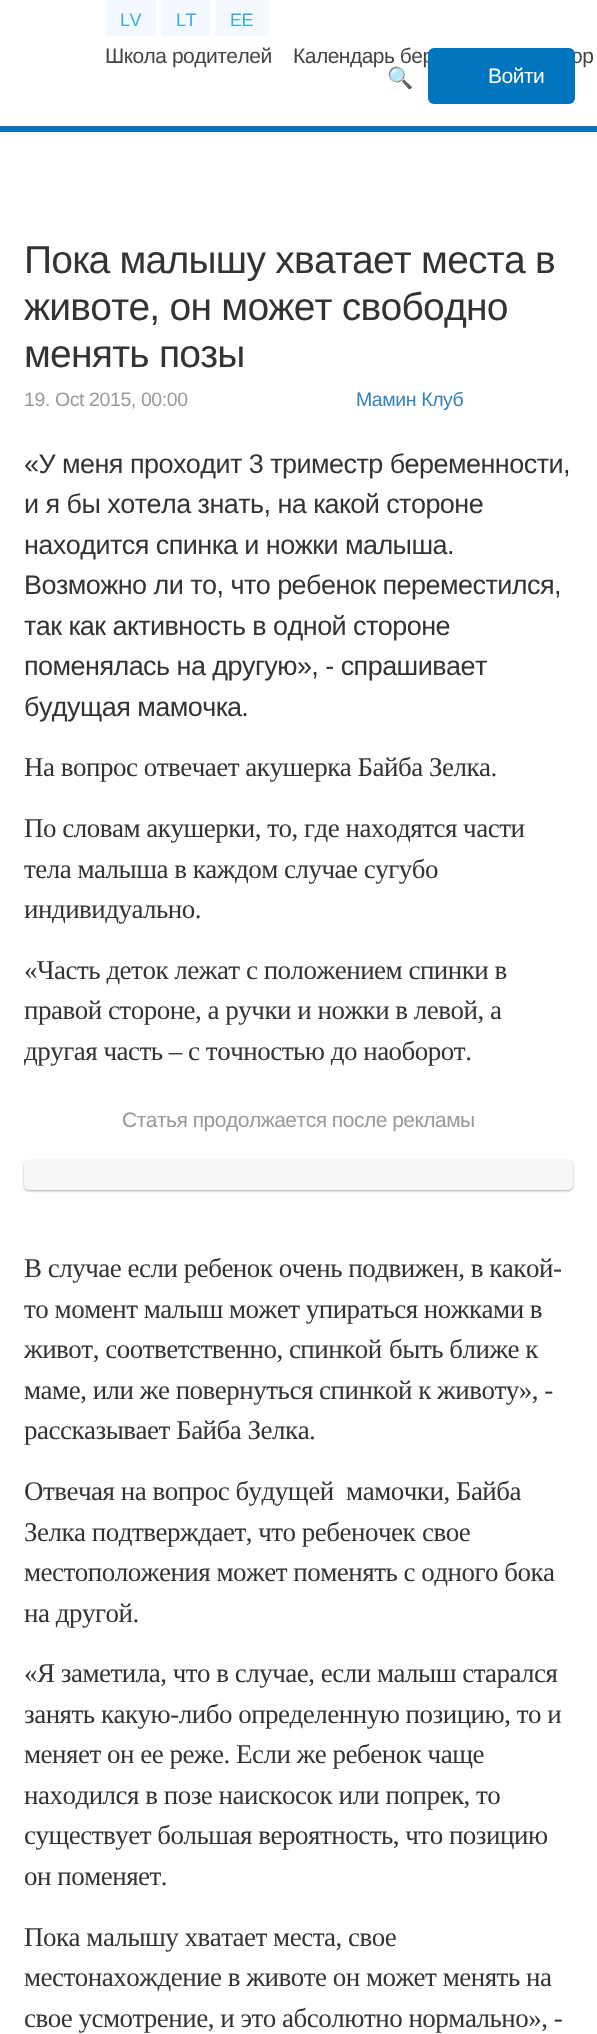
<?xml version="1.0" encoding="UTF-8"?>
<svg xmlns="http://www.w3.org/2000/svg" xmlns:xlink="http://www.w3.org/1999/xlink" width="597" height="2034">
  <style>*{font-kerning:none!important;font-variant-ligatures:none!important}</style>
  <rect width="100%" height="100%" fill="#ffffff" />
  <rect y="126" width="597" height="6" fill="#0075bf" />
  <path d="M 105 0 h 51 v 33 c 0 1.5 -1.5 3 -3 3 h -45 c -1.5 0 -3 -1.5 -3 -3 z" fill="#f3f9ff" />
  <path d="M 161 0 h 49 v 33 c 0 1.5 -1.5 3 -3 3 h -43 c -1.5 0 -3 -1.5 -3 -3 z" fill="#f3f9ff" />
  <path d="M 215 0 h 54 v 33 c 0 1.5 -1.5 3 -3 3 h -48 c -1.5 0 -3 -1.5 -3 -3 z" fill="#f3f9ff" />
  <rect x="24" y="1161" width="549" height="30" rx="5" fill="#aaaaaa" filter="blur(1px)" />
  <rect x="24" y="1160" width="549" height="30" rx="5" fill="#f7f7f7" />
  <text x="120" y="26" style="font-family: Liberation Sans; font-size: 18px; letter-spacing: -0.5px; fill: #3faae0">LV</text>
  <text x="176" y="26" style="font-family: Liberation Sans; font-size: 18px; letter-spacing: -0.5px; fill: #3faae0">LT</text>
  <text x="230" y="26" style="font-family: Liberation Sans; font-size: 18px; letter-spacing: -0.5px; fill: #3faae0">EE</text>
  <text x="105" y="63" style="font-family: Liberation Sans; font-size: 21px; letter-spacing: -0.5px; fill: #444444">Школа родителей</text>
  <text x="293" y="63" style="font-family: Liberation Sans; font-size: 21px; letter-spacing: -0.5px; fill: #444444">Календарь бер</text>
  <text x="571" y="63" style="font-family: Liberation Sans; font-size: 21px; letter-spacing: -0.5px; fill: #444444">ор</text>
  <text x="387" y="85" style="font-family: Noto Color Emoji; font-size: 21px; letter-spacing: -0.5px; fill: #444444">🔍</text>
  <rect x="428" y="48" width="147" height="56" rx="6" fill="#0075bf" />
  <text x="488" y="83" style="font-family: Liberation Sans; font-size: 21px; letter-spacing: -0.5px; fill: #ffffff">Войти</text>
  <text x="24" y="273" style="font-family: Liberation Sans; font-size: 39px; letter-spacing: -0.75px; fill: #333333">Пока малышу хватает места в</text>
  <text x="24" y="320" style="font-family: Liberation Sans; font-size: 39px; letter-spacing: -0.75px; fill: #333333">животе, он может свободно</text>
  <text x="24" y="367" style="font-family: Liberation Sans; font-size: 39px; letter-spacing: -0.75px; fill: #333333">менять позы</text>
  <text x="24" y="406" style="font-family: Liberation Sans; font-size: 19.5px; letter-spacing: -0.4px; fill: #999999">19. Oct 2015, 00:00</text>
  <text x="356" y="406" style="font-family: Liberation Sans; font-size: 19.5px; letter-spacing: -0.4px; fill: #3382bc">Мамин Клуб</text>
  <text x="24" y="473" style="font-family: Liberation Sans; font-size: 27px; letter-spacing: -0.55px; fill: #333333">«У меня проходит 3 триместр беременности,</text>
  <text x="24" y="513" style="font-family: Liberation Sans; font-size: 27px; letter-spacing: -0.55px; fill: #333333">и я бы хотела знать, на какой стороне</text>
  <text x="24" y="554" style="font-family: Liberation Sans; font-size: 27px; letter-spacing: -0.55px; fill: #333333">находится спинка и ножки малыша.</text>
  <text x="24" y="594" style="font-family: Liberation Sans; font-size: 27px; letter-spacing: -0.55px; fill: #333333">Возможно ли то, что ребенок переместился,</text>
  <text x="24" y="635" style="font-family: Liberation Sans; font-size: 27px; letter-spacing: -0.55px; fill: #333333">так как активность в одной стороне</text>
  <text x="24" y="675" style="font-family: Liberation Sans; font-size: 27px; letter-spacing: -0.55px; fill: #333333">поменялась на другую», - спрашивает</text>
  <text x="24" y="716" style="font-family: Liberation Sans; font-size: 27px; letter-spacing: -0.55px; fill: #333333">будущая мамочка.</text>
  <text x="24" y="776" style="font-family: Liberation Serif; font-size: 27px; letter-spacing: -0.5px; fill: #333333">На вопрос отвечает акушерка Байба Зелка.</text>
  <text x="24" y="837" style="font-family: Liberation Serif; font-size: 27px; letter-spacing: -0.5px; fill: #333333">По словам акушерки, то, где находятся части</text>
  <text x="24" y="878" style="font-family: Liberation Serif; font-size: 27px; letter-spacing: -0.5px; fill: #333333">тела малыша в каждом случае сугубо</text>
  <text x="24" y="918" style="font-family: Liberation Serif; font-size: 27px; letter-spacing: -0.5px; fill: #333333">индивидуально.</text>
  <text x="24" y="979" style="font-family: Liberation Serif; font-size: 27px; letter-spacing: -0.5px; fill: #333333">«Часть деток лежат с положением спинки в</text>
  <text x="24" y="1019" style="font-family: Liberation Serif; font-size: 27px; letter-spacing: -0.5px; fill: #333333">правой стороне, а ручки и ножки в левой, а</text>
  <text x="24" y="1060" style="font-family: Liberation Serif; font-size: 27px; letter-spacing: -0.5px; fill: #333333">другая часть – с точностью до наоборот.</text>
  <text x="122" y="1127" style="font-family: Liberation Sans; font-size: 21px; letter-spacing: -0.5px; fill: #999999">Статья продолжается после рекламы</text>
  <text x="24" y="1277" style="font-family: Liberation Serif; font-size: 27px; letter-spacing: -0.5px; fill: #333333">В случае если ребенок очень подвижен, в какой-</text>
  <text x="24" y="1318" style="font-family: Liberation Serif; font-size: 27px; letter-spacing: -0.5px; fill: #333333">то момент малыш может упираться ножками в</text>
  <text x="24" y="1358" style="font-family: Liberation Serif; font-size: 27px; letter-spacing: -0.5px; fill: #333333">живот, соответственно, спинкой</text>
  <text x="389" y="1358" style="font-family: Liberation Serif; font-size: 27px; letter-spacing: -0.5px; fill: #333333">быть ближе к</text>
  <text x="24" y="1399" style="font-family: Liberation Serif; font-size: 27px; letter-spacing: -0.5px; fill: #333333">маме, или же повернуться спинкой к животу», -</text>
  <text x="24" y="1439" style="font-family: Liberation Serif; font-size: 27px; letter-spacing: -0.5px; fill: #333333">рассказывает Байба Зелка.</text>
  <text x="24" y="1500" style="font-family: Liberation Serif; font-size: 27px; letter-spacing: -0.5px; fill: #333333" xml:space="preserve">Отвечая на вопрос будущей  мамочки, Байба</text>
  <text x="24" y="1541" style="font-family: Liberation Serif; font-size: 27px; letter-spacing: -0.5px; fill: #333333">Зелка подтверждает, что ребеночек</text>
  <text x="422" y="1541" style="font-family: Liberation Serif; font-size: 27px; letter-spacing: -0.5px; fill: #333333">свое</text>
  <text x="24" y="1581" style="font-family: Liberation Serif; font-size: 27px; letter-spacing: -0.5px; fill: #333333">местоположения может поменять с одного бока</text>
  <text x="24" y="1622" style="font-family: Liberation Serif; font-size: 27px; letter-spacing: -0.5px; fill: #333333">на другой.</text>
  <text x="24" y="1682" style="font-family: Liberation Serif; font-size: 27px; letter-spacing: -0.5px; fill: #333333">«Я заметила, что в случае, если малыш старался</text>
  <text x="24" y="1723" style="font-family: Liberation Serif; font-size: 27px; letter-spacing: -0.5px; fill: #333333">занять какую-либо определенную позицию, то и</text>
  <text x="24" y="1763" style="font-family: Liberation Serif; font-size: 27px; letter-spacing: -0.5px; fill: #333333">меняет он ее реже. Если же ребенок чаще</text>
  <text x="24" y="1804" style="font-family: Liberation Serif; font-size: 27px; letter-spacing: -0.5px; fill: #333333">находился в позе наискосок или попрек, то</text>
  <text x="24" y="1844" style="font-family: Liberation Serif; font-size: 27px; letter-spacing: -0.5px; fill: #333333">существует большая вероятность, что позицию</text>
  <text x="24" y="1885" style="font-family: Liberation Serif; font-size: 27px; letter-spacing: -0.5px; fill: #333333">он поменяет.</text>
  <text x="24" y="1946" style="font-family: Liberation Serif; font-size: 27px; letter-spacing: -0.5px; fill: #333333">Пока малышу хватает места, свое</text>
  <text x="24" y="1986" style="font-family: Liberation Serif; font-size: 27px; letter-spacing: -0.5px; fill: #333333">местонахождение в животе он может менять на</text>
  <text x="24" y="2027" style="font-family: Liberation Serif; font-size: 27px; letter-spacing: -0.5px; fill: #333333">свое усмотрение, и это абсолютно нормально», -</text>
</svg>
